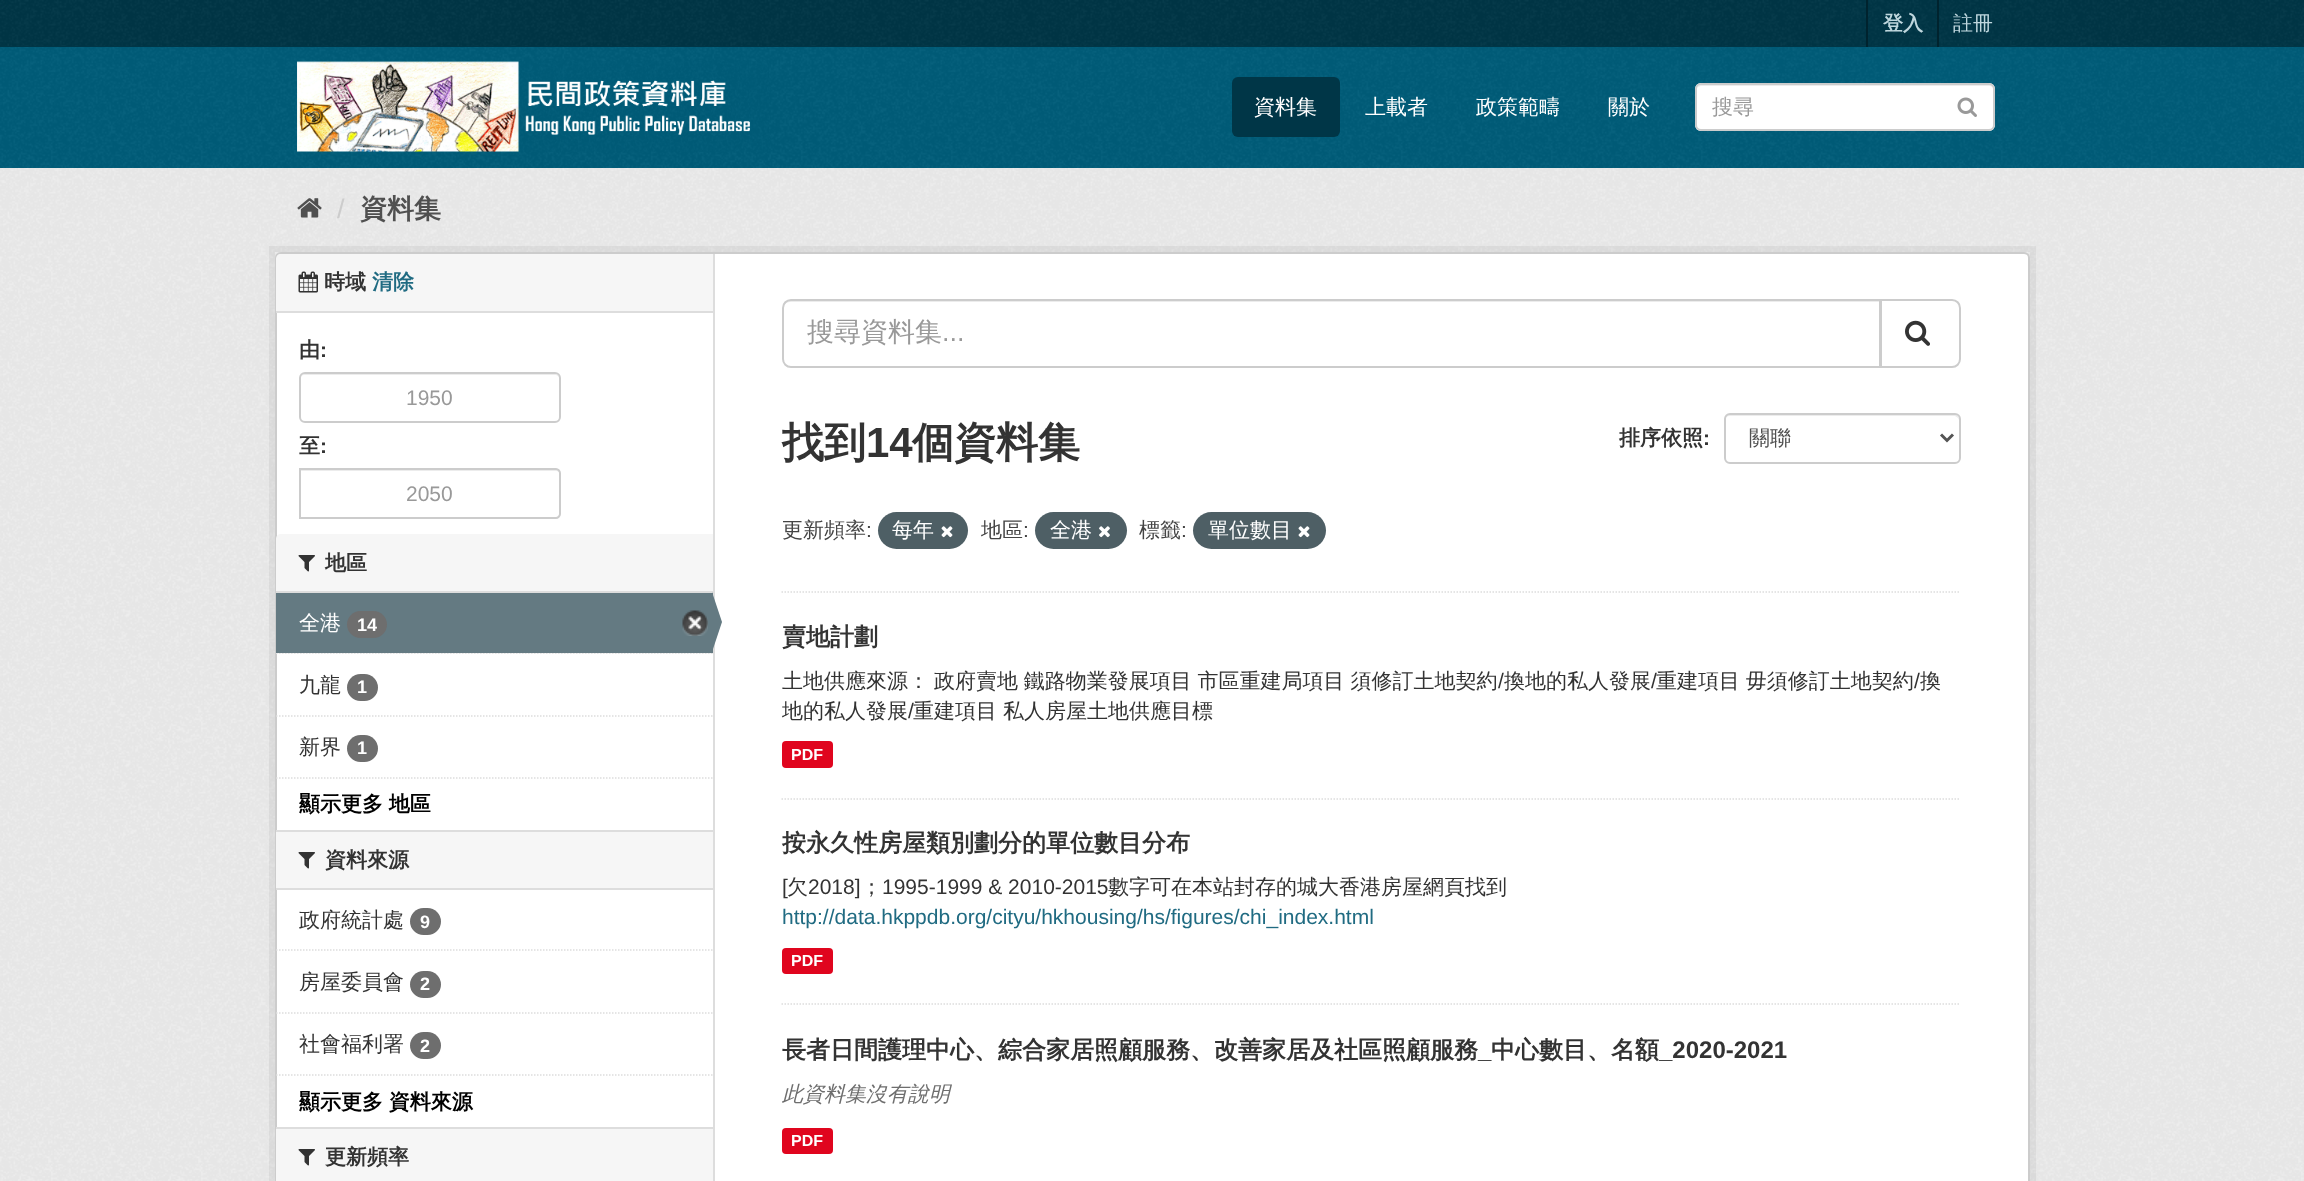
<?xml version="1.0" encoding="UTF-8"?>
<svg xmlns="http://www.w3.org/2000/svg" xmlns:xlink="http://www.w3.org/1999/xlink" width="2304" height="1181">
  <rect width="100%" height="100%" fill="#003647" />
  <image x="0" y="0" width="2304" height="46" xlink:href="image1.png" />
  <rect x="1866" width="2" height="47" fill="#00232e" />
  <rect x="1937" width="2" height="47" fill="#00232e" />
  <rect y="47" width="2304" height="121" fill="#005d7a" />
  <image x="0" y="47" width="2304" height="121" xlink:href="image2.png" />
  <image x="297" y="61" width="472" height="91" xlink:href="image3.png" />
  <rect x="1232" y="77" width="108" height="60" rx="6" fill="#003647" />
  <rect x="1695" y="83" width="300" height="48" rx="6" fill="#ffffff" />
  <path d="M 1701 86 h 288 c 2 0 5 2 5 4 v -1 c 0 -3 -2 -5 -5 -5 h -287 c -2 0 -4 2 -5 4 c 1 -1 3 -2 4 -2 z" fill="#ececec" />
  <rect x="1696" y="84" width="298" height="46" rx="5" fill="none" stroke="#cccccc" stroke-width="2" />
  <image x="1957" y="97" width="20" height="20" xlink:href="image4.png" />
  <rect y="168" width="2304" height="1013" fill="#eeeeee" />
  <image x="0" y="168" width="2304" height="1013" xlink:href="image5.png" />
  <image x="297" y="198" width="25" height="20" xlink:href="image6.png" />
  <rect x="272" y="249" width="1761" height="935" fill="none" stroke="#000000" stroke-opacity="0.05" stroke-width="6" />
  <rect x="276" y="253" width="1753" height="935" rx="5" fill="#ffffff" stroke="#cccccc" stroke-width="2" />
  <path d="M 281 254 h 432 v 58 h -437 v -53 c 0 -3 2 -5 5 -5 z" fill="#f6f6f6" />
  <rect x="276" y="311" width="437" height="2" fill="#dddddd" />
  <image x="298" y="271" width="20" height="22" xlink:href="image7.png" />
  <path d="M 304 375 h 251 c 2 0 5 2 5 5 c 0 -3 -2 -6 -5 -6 h -250 c -3 0 -5 3 -5 6 c 0 -3 2 -5 4 -5 z" fill="#ececec" />
  <rect x="300" y="373" width="260" height="49" rx="5" fill="none" stroke="#cccccc" stroke-width="2" />
  <path d="M 300 471 h 256 c 2 0 4 1 4 3 v -1 c 0 -2 -1 -3 -3 -3 h -257 z" fill="#ececec" />
  <path d="M 300 469 h 256 c 2 0 4 2 4 4 v 41 c 0 2 -2 4 -4 4 h -256 z" fill="none" stroke="#cccccc" stroke-width="2" />
  <path d="M 281 534 h 432 v 59 h -437 v -54 c 0 -3 2 -5 5 -5 z" fill="#f6f6f6" />
  <rect x="276" y="591" width="437" height="2" fill="#dddddd" />
  <image x="298" y="555" width="17" height="17" xlink:href="image8.png" />
  <rect x="276" y="653" width="437" height="1" fill="#f6f6f6" />
  <path d="M 276 653 h 436.5" fill="none" stroke="#dddddd" stroke-width="1.5" stroke-dasharray="1.5 1.5" />
  <rect x="276" y="593" width="437" height="60" fill="#647a82" />
  <rect x="347" y="611" width="40" height="27" rx="13.5" fill="#6e6e6e" />
  <image x="682" y="610" width="26" height="26" xlink:href="image9.png" />
  <rect x="713" y="254" width="2" height="927" fill="#dddddd" />
  <path d="M 712 652 v -60 l 10 30 z" fill="#647a82" />
  <path d="M 276 716 h 436.5" fill="none" stroke="#dddddd" stroke-width="1.5" stroke-dasharray="1.5 1.5" />
  <rect x="347" y="674" width="31" height="27" rx="13.5" fill="#6e6e6e" />
  <rect x="347" y="735" width="31" height="27" rx="13.5" fill="#6e6e6e" />
  <path d="M 276 778 h 436.5" fill="none" stroke="#dddddd" stroke-width="1.5" stroke-dasharray="1.5 1.5" />
  <rect x="276" y="832" width="437" height="56" fill="#f6f6f6" />
  <rect x="276" y="830" width="437" height="2" fill="#dddddd" />
  <rect x="276" y="888" width="437" height="2" fill="#dddddd" />
  <image x="298" y="852" width="17" height="17" xlink:href="image8.png" />
  <path d="M 276 950 h 436.5" fill="none" stroke="#dddddd" stroke-width="1.5" stroke-dasharray="1.5 1.5" />
  <rect x="410" y="908" width="31" height="27" rx="13.5" fill="#6e6e6e" />
  <path d="M 276 1013 h 436.5" fill="none" stroke="#dddddd" stroke-width="1.5" stroke-dasharray="1.5 1.5" />
  <rect x="410" y="971" width="31" height="27" rx="13.5" fill="#6e6e6e" />
  <rect x="410" y="1032" width="31" height="27" rx="13.5" fill="#6e6e6e" />
  <path d="M 276 1075 h 436.5" fill="none" stroke="#dddddd" stroke-width="1.5" stroke-dasharray="1.5 1.5" />
  <rect x="276" y="1129" width="437" height="52" fill="#f6f6f6" />
  <rect x="276" y="1127" width="437" height="2" fill="#dddddd" />
  <image x="298" y="1149" width="17" height="17" xlink:href="image8.png" />
  <path d="M 781.5 592 h 1179" fill="none" stroke="#dddddd" stroke-width="1.5" stroke-dasharray="1.5 1.5" />
  <path d="M 790 302 h 1090 v -2 h -1089 c -4 0 -8 4 -8 8 v 1 c 0 -4 3 -7 7 -7 z" fill="#ececec" />
  <path d="M 791 300 h 1089 v 67 h -1089 c -4.5 0 -8 -3.5 -8 -8 v -51 c 0 -4.5 3.5 -8 8 -8 z" fill="none" stroke="#cccccc" stroke-width="2" />
  <path d="M 1881 300 h 71 c 4.5 0 8 3.5 8 8 v 51 c 0 4.5 -3.5 8 -8 8 h -71 z" fill="#ffffff" stroke="#cccccc" stroke-width="2" />
  <image x="1905" y="320" width="25" height="26" xlink:href="image10.png" />
  <path d="M 1730 416 h 225 l 3 2 l 1 2 v -1 c 0 -3 -2 -5 -5 -5 h -224 c -3 0 -5 2 -5 5 v 1 c 0 -2 2 -4 5 -4 z" fill="#ececec" />
  <rect x="1725" y="414" width="235" height="49" rx="5" fill="none" stroke="#cccccc" stroke-width="2" />
  <path d="M 1941 434.5 l 6 6 l 6 -6" fill="none" stroke="#555555" stroke-width="3" />
  <rect x="878" y="512" width="90" height="37" rx="18.5" fill="#4e5f65" />
  <image x="941" y="526" width="12" height="12" xlink:href="image11.png" />
  <rect x="1035" y="512" width="92" height="37" rx="18.5" fill="#4e5f65" />
  <image x="1099" y="526" width="11" height="12" xlink:href="image12.png" />
  <rect x="1193" y="512" width="133" height="37" rx="18.5" fill="#4e5f65" />
  <image x="1298" y="526" width="12" height="12" xlink:href="image11.png" />
  <path d="M 781.5 799 h 1179" fill="none" stroke="#dddddd" stroke-width="1.5" stroke-dasharray="1.5 1.5" />
  <rect x="782" y="741" width="51" height="27" rx="4" fill="#e0051e" />
  <path d="M 781.5 1004 h 1179" fill="none" stroke="#dddddd" stroke-width="1.5" stroke-dasharray="1.5 1.5" />
  <rect x="782" y="948" width="51" height="26" rx="4" fill="#e0051e" />
  <rect x="782" y="1128" width="51" height="26" rx="4" fill="#e0051e" />
  <text x="1883" y="30" style="font-family: WenQuanYi Zen Hei; font-size: 20px; font-weight: bold; fill: #bfd7de">登入</text>
  <text x="1953" y="30" style="font-family: WenQuanYi Zen Hei; font-size: 20px; font-weight: 500; fill: #bfd7de">註冊</text>
  <text x="1254" y="114" style="font-family: WenQuanYi Zen Hei; font-size: 21px; font-weight: 500; fill: #ffffff">資料集</text>
  <text x="1365" y="114" style="font-family: WenQuanYi Zen Hei; font-size: 21px; font-weight: 500; fill: #ffffff">上載者</text>
  <text x="1476" y="114" style="font-family: WenQuanYi Zen Hei; font-size: 21px; font-weight: 500; fill: #ffffff">政策範疇</text>
  <text x="1608" y="114" style="font-family: WenQuanYi Zen Hei; font-size: 21px; font-weight: 500; fill: #ffffff">關於</text>
  <text x="1712" y="114" style="font-family: WenQuanYi Zen Hei; font-size: 21px; font-weight: 500; fill: #999999">搜尋</text>
  <text x="337" y="218" style="font-family: Liberation Sans; font-size: 27px; fill: #cccccc">/</text>
  <text x="360" y="218" style="font-family: WenQuanYi Zen Hei; font-size: 27px; font-weight: bold; fill: #505050">資料集</text>
  <text x="324" y="289" style="font-family: WenQuanYi Zen Hei; font-size: 21px; font-weight: bold; fill: #333333">時域</text>
  <text x="372" y="289" style="font-family: WenQuanYi Zen Hei; font-size: 21px; font-weight: bold; fill: #206b82">清除</text>
  <text x="299" y="357" style="font-family: WenQuanYi Zen Hei; font-size: 21px; font-weight: bold; fill: #333333">由</text>
  <text x="320" y="357" style="font-family: Liberation Sans; font-size: 21px; font-weight: bold; fill: #333333">:</text>
  <text x="406" y="405" style="font-family: Liberation Sans; font-size: 21px; fill: #999999">1950</text>
  <text x="299" y="453" style="font-family: WenQuanYi Zen Hei; font-size: 21px; font-weight: bold; fill: #333333">至</text>
  <text x="320" y="453" style="font-family: Liberation Sans; font-size: 21px; font-weight: bold; fill: #333333">:</text>
  <text x="406" y="501" style="font-family: Liberation Sans; font-size: 21px; fill: #999999">2050</text>
  <text x="325" y="570" style="font-family: WenQuanYi Zen Hei; font-size: 21px; font-weight: bold; fill: #333333">地區</text>
  <text x="299" y="630" style="font-family: WenQuanYi Zen Hei; font-size: 21px; font-weight: 500; fill: #ffffff">全港</text>
  <text x="357" y="631" style="font-family: Liberation Sans; font-size: 18px; font-weight: bold; fill: #ffffff">14</text>
  <text x="299" y="692" style="font-family: WenQuanYi Zen Hei; font-size: 21px; font-weight: 500; fill: #333333">九龍</text>
  <text x="357" y="693" style="font-family: Liberation Sans; font-size: 18px; font-weight: bold; fill: #ffffff">1</text>
  <text x="299" y="754" style="font-family: WenQuanYi Zen Hei; font-size: 21px; font-weight: 500; fill: #333333">新界</text>
  <text x="357" y="754" style="font-family: Liberation Sans; font-size: 18px; font-weight: bold; fill: #ffffff">1</text>
  <text x="299" y="811" word-spacing="-0.5" style="font-family: WenQuanYi Zen Hei; font-size: 21px; font-weight: bold; fill: #000000">顯示更多 地區</text>
  <text x="325" y="867" style="font-family: WenQuanYi Zen Hei; font-size: 21px; font-weight: bold; fill: #333333">資料來源</text>
  <text x="299" y="927" style="font-family: WenQuanYi Zen Hei; font-size: 21px; font-weight: 500; fill: #333333">政府統計處</text>
  <text x="420" y="928" style="font-family: Liberation Sans; font-size: 18px; font-weight: bold; fill: #ffffff">9</text>
  <text x="299" y="989" style="font-family: WenQuanYi Zen Hei; font-size: 21px; font-weight: 500; fill: #333333">房屋委員會</text>
  <text x="420" y="990" style="font-family: Liberation Sans; font-size: 18px; font-weight: bold; fill: #ffffff">2</text>
  <text x="299" y="1051" style="font-family: WenQuanYi Zen Hei; font-size: 21px; font-weight: 500; fill: #333333">社會福利署</text>
  <text x="420" y="1052" style="font-family: Liberation Sans; font-size: 18px; font-weight: bold; fill: #ffffff">2</text>
  <text x="299" y="1109" word-spacing="-0.5" style="font-family: WenQuanYi Zen Hei; font-size: 21px; font-weight: bold; fill: #000000">顯示更多 資料來源</text>
  <text x="325" y="1164" style="font-family: WenQuanYi Zen Hei; font-size: 21px; font-weight: bold; fill: #333333">更新頻率</text>
  <text x="807" y="341" style="font-family: WenQuanYi Zen Hei; font-size: 27px; font-weight: 500; fill: #999999">搜尋資料集</text>
  <text x="942" y="341" style="font-family: Liberation Sans; font-size: 27px; fill: #999999">...</text>
  <text x="782" y="457" style="font-family: WenQuanYi Zen Hei; font-size: 42px; font-weight: bold; fill: #333333">找到</text>
  <text x="866" y="457" style="font-family: Liberation Sans; font-size: 42px; font-weight: bold; fill: #333333">14</text>
  <text x="912" y="457" style="font-family: WenQuanYi Zen Hei; font-size: 42px; font-weight: bold; fill: #333333">個資料集</text>
  <text x="1619" y="445" style="font-family: WenQuanYi Zen Hei; font-size: 21px; font-weight: bold; fill: #333333">排序依照</text>
  <text x="1703" y="445" style="font-family: Liberation Sans; font-size: 21px; font-weight: bold; fill: #333333">:</text>
  <text x="1749" y="445" style="font-family: WenQuanYi Zen Hei; font-size: 21px; font-weight: 500; fill: #505050">關聯</text>
  <text x="782" y="537" style="font-family: WenQuanYi Zen Hei; font-size: 21px; font-weight: 500; fill: #444444">更新頻率</text>
  <text x="866" y="537" style="font-family: Liberation Sans; font-size: 21px; fill: #444444">:</text>
  <text x="892" y="537" style="font-family: WenQuanYi Zen Hei; font-size: 21px; font-weight: 500; fill: #ffffff">每年</text>
  <text x="981" y="537" style="font-family: WenQuanYi Zen Hei; font-size: 21px; font-weight: 500; fill: #444444">地區</text>
  <text x="1023" y="537" style="font-family: Liberation Sans; font-size: 21px; fill: #444444">:</text>
  <text x="1050" y="537" style="font-family: WenQuanYi Zen Hei; font-size: 21px; font-weight: 500; fill: #ffffff">全港</text>
  <text x="1139" y="537" style="font-family: WenQuanYi Zen Hei; font-size: 21px; font-weight: 500; fill: #444444">標籤</text>
  <text x="1181" y="537" style="font-family: Liberation Sans; font-size: 21px; fill: #444444">:</text>
  <text x="1208" y="537" style="font-family: WenQuanYi Zen Hei; font-size: 21px; font-weight: 500; fill: #ffffff">單位數目</text>
  <text x="782" y="645" style="font-family: WenQuanYi Zen Hei; font-size: 24px; font-weight: bold; fill: #333333">賣地計劃</text>
  <text x="782" y="688" style="font-family: WenQuanYi Zen Hei; font-size: 21px; font-weight: 500; fill: #333333">土地供應來源：</text>
  <text x="934" y="688" word-spacing="-0.5" style="font-family: WenQuanYi Zen Hei; font-size: 21px; font-weight: 500; fill: #333333">政府賣地 鐵路物業發展項目 市區重建局項目 須修訂土地契約</text>
  <text x="1498" y="688" style="font-family: Liberation Sans; font-size: 21px; fill: #333333">/</text>
  <text x="1504" y="688" style="font-family: WenQuanYi Zen Hei; font-size: 21px; font-weight: 500; fill: #333333">換地的私人發展</text>
  <text x="1651" y="688" style="font-family: Liberation Sans; font-size: 21px; fill: #333333">/</text>
  <text x="1656" y="688" word-spacing="-0.5" style="font-family: WenQuanYi Zen Hei; font-size: 21px; font-weight: 500; fill: #333333">重建項目 毋須修訂土地契約</text>
  <text x="1914" y="688" style="font-family: Liberation Sans; font-size: 21px; fill: #333333">/</text>
  <text x="1920" y="688" style="font-family: WenQuanYi Zen Hei; font-size: 21px; font-weight: 500; fill: #333333">換</text>
  <text x="782" y="718" style="font-family: WenQuanYi Zen Hei; font-size: 21px; font-weight: 500; fill: #333333">地的私人發展</text>
  <text x="908" y="718" style="font-family: Liberation Sans; font-size: 21px; fill: #333333">/</text>
  <text x="913" y="718" style="font-family: WenQuanYi Zen Hei; font-size: 21px; font-weight: 500; fill: #333333">重建項目</text>
  <text x="1003" y="718" style="font-family: WenQuanYi Zen Hei; font-size: 21px; font-weight: 500; fill: #333333">私人房屋土地供應目標</text>
  <text x="791" y="760" style="font-family: Liberation Sans; font-size: 16px; font-weight: bold; fill: #ffffff">PDF</text>
  <text x="782" y="851" style="font-family: WenQuanYi Zen Hei; font-size: 24px; font-weight: bold; fill: #333333">按永久性房屋類別劃分的單位數目分布</text>
  <text x="782" y="894" style="font-family: Liberation Sans; font-size: 21px; fill: #333333">[</text>
  <text x="787" y="894" style="font-family: WenQuanYi Zen Hei; font-size: 21px; font-weight: 500; fill: #333333">欠</text>
  <text x="808" y="894" style="font-family: Liberation Sans; font-size: 21px; fill: #333333">2018]</text>
  <text x="861" y="894" style="font-family: WenQuanYi Zen Hei; font-size: 21px; font-weight: 500; fill: #333333">；</text>
  <text x="882" y="894" style="font-family: Liberation Sans; font-size: 21px; fill: #333333">1995-1999 &amp; 2010-2015</text>
  <text x="1108" y="894" style="font-family: WenQuanYi Zen Hei; font-size: 21px; font-weight: 500; fill: #333333">數字可在本站封存的城大香港房屋網頁找到</text>
  <text x="782" y="924" style="font-family: Liberation Sans; font-size: 21px; fill: #206b82">http://data.hkppdb.org/cityu/hkhousing/hs/figures/chi_index.html</text>
  <text x="791" y="966" style="font-family: Liberation Sans; font-size: 16px; font-weight: bold; fill: #ffffff">PDF</text>
  <text x="782" y="1058" style="font-family: WenQuanYi Zen Hei; font-size: 24px; font-weight: bold; fill: #333333">長者日間護理中心、綜合家居照顧服務、改善家居及社區照顧服務</text>
  <text x="1478" y="1058" style="font-family: Liberation Sans; font-size: 24px; font-weight: bold; fill: #333333">_</text>
  <text x="1491" y="1058" style="font-family: WenQuanYi Zen Hei; font-size: 24px; font-weight: bold; fill: #333333">中心數目、名額</text>
  <text x="1659" y="1058" style="font-family: Liberation Sans; font-size: 24px; font-weight: bold; fill: #333333">_2020-2021</text>
  <text x="782" y="1101" style="font-family: WenQuanYi Zen Hei; font-size: 21px; font-weight: 500; font-style: italic; fill: #6e6e6e">此資料集沒有說明</text>
  <text x="791" y="1146" style="font-family: Liberation Sans; font-size: 16px; font-weight: bold; fill: #ffffff">PDF</text>
</svg>
